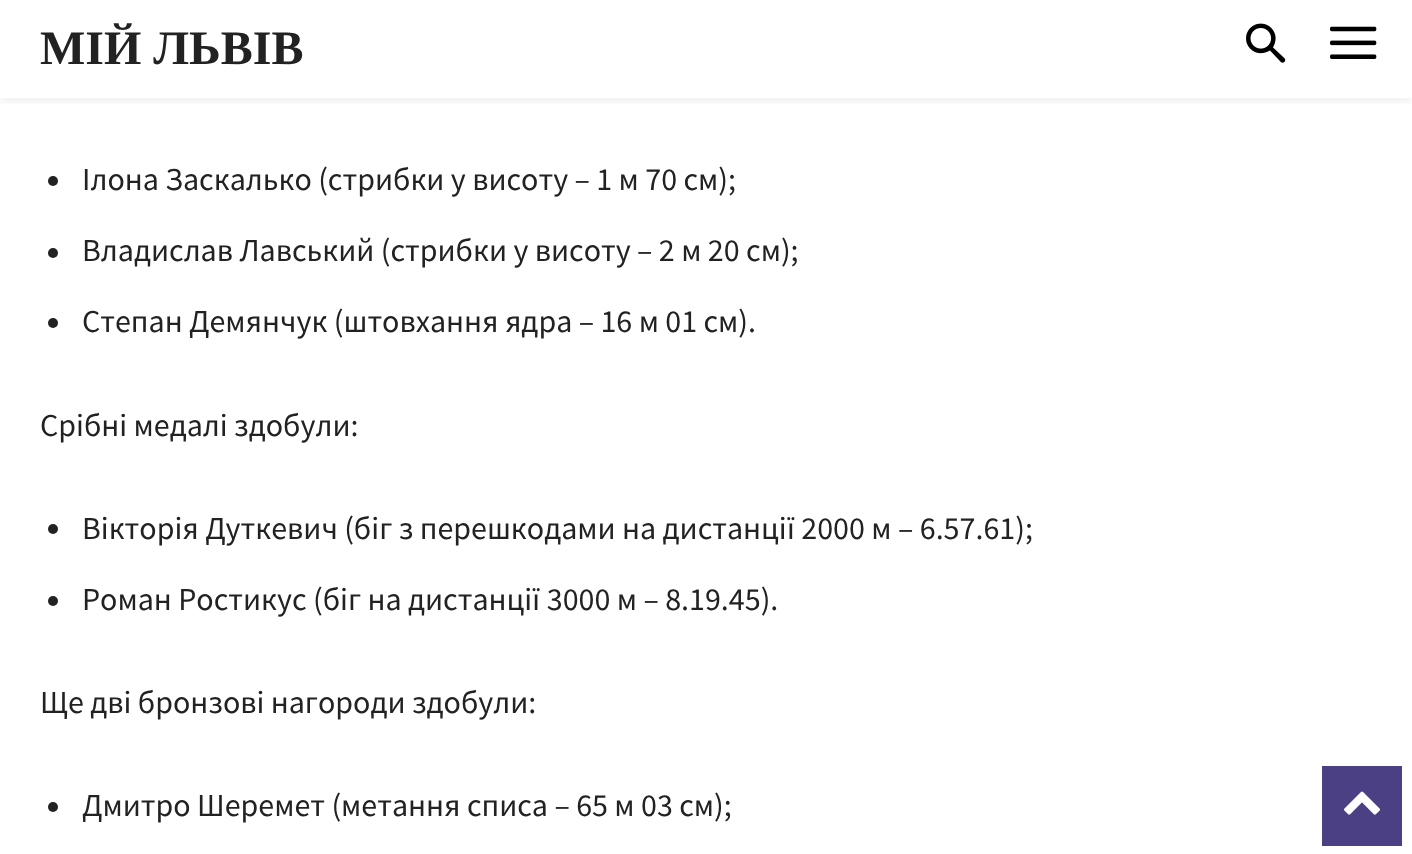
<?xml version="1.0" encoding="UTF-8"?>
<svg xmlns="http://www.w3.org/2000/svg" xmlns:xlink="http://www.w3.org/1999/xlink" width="1412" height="854">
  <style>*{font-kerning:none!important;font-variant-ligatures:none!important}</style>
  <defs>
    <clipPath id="clip1"><rect x="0" y="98" width="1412" height="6" /></clipPath>
  </defs>
  <rect width="100%" height="100%" fill="#ffffff" />
  <image x="1246" y="23" width="40" height="40" xlink:href="image1.png" />
  <image x="1330" y="26" width="47" height="33" xlink:href="image2.png" />
  <g clip-path="url(#clip1)">
    <rect y="4" width="1412" height="98" fill="#000000" fill-opacity="0.06" filter="blur(4px)" />
  </g>
  <circle cx="53" cy="181" r="5" fill="#222222" />
  <circle cx="53" cy="253" r="5" fill="#222222" />
  <circle cx="53" cy="323" r="5" fill="#222222" />
  <circle cx="53" cy="529" r="5" fill="#222222" />
  <circle cx="53" cy="601" r="5" fill="#222222" />
  <circle cx="53" cy="807" r="5" fill="#222222" />
  <rect x="1322" y="766" width="80" height="80" fill="#4c4084" />
  <image x="1344" y="791" width="36" height="24" xlink:href="image3.png" />
  <text x="40" y="64" style="font-family: Liberation Serif; font-size: 48px; font-weight: bold; fill: #222222">МІЙ ЛЬВІВ</text>
  <text x="82" y="190" style="font-family: Source Sans Pro; font-size: 32px; fill: #222222">Ілона Заскалько (стрибки у висоту – 1 м 70 см);</text>
  <text x="82" y="261" style="font-family: Source Sans Pro; font-size: 32px; fill: #222222">Владислав Лавський (стрибки у висоту – 2 м 20 см);</text>
  <text x="82" y="332" style="font-family: Source Sans Pro; font-size: 32px; fill: #222222">Степан Демянчук (штовхання ядра – 16 м 01 см).</text>
  <text x="40" y="436" style="font-family: Source Sans Pro; font-size: 32px; fill: #222222">Срібні медалі здобули:</text>
  <text x="82" y="539" style="font-family: Source Sans Pro; font-size: 32px; fill: #222222">Вікторія Дуткевич (біг з перешкодами на дистанції 2000 м – 6.57.61);</text>
  <text x="82" y="610" style="font-family: Source Sans Pro; font-size: 32px; fill: #222222">Роман Ростикус (біг на дистанції 3000 м – 8.19.45).</text>
  <text x="40" y="713" style="font-family: Source Sans Pro; font-size: 32px; fill: #222222">Ще дві бронзові нагороди здобули:</text>
  <text x="82" y="816" style="font-family: Source Sans Pro; font-size: 32px; fill: #222222">Дмитро Шеремет (метання списа – 65 м 03 см);</text>
</svg>
